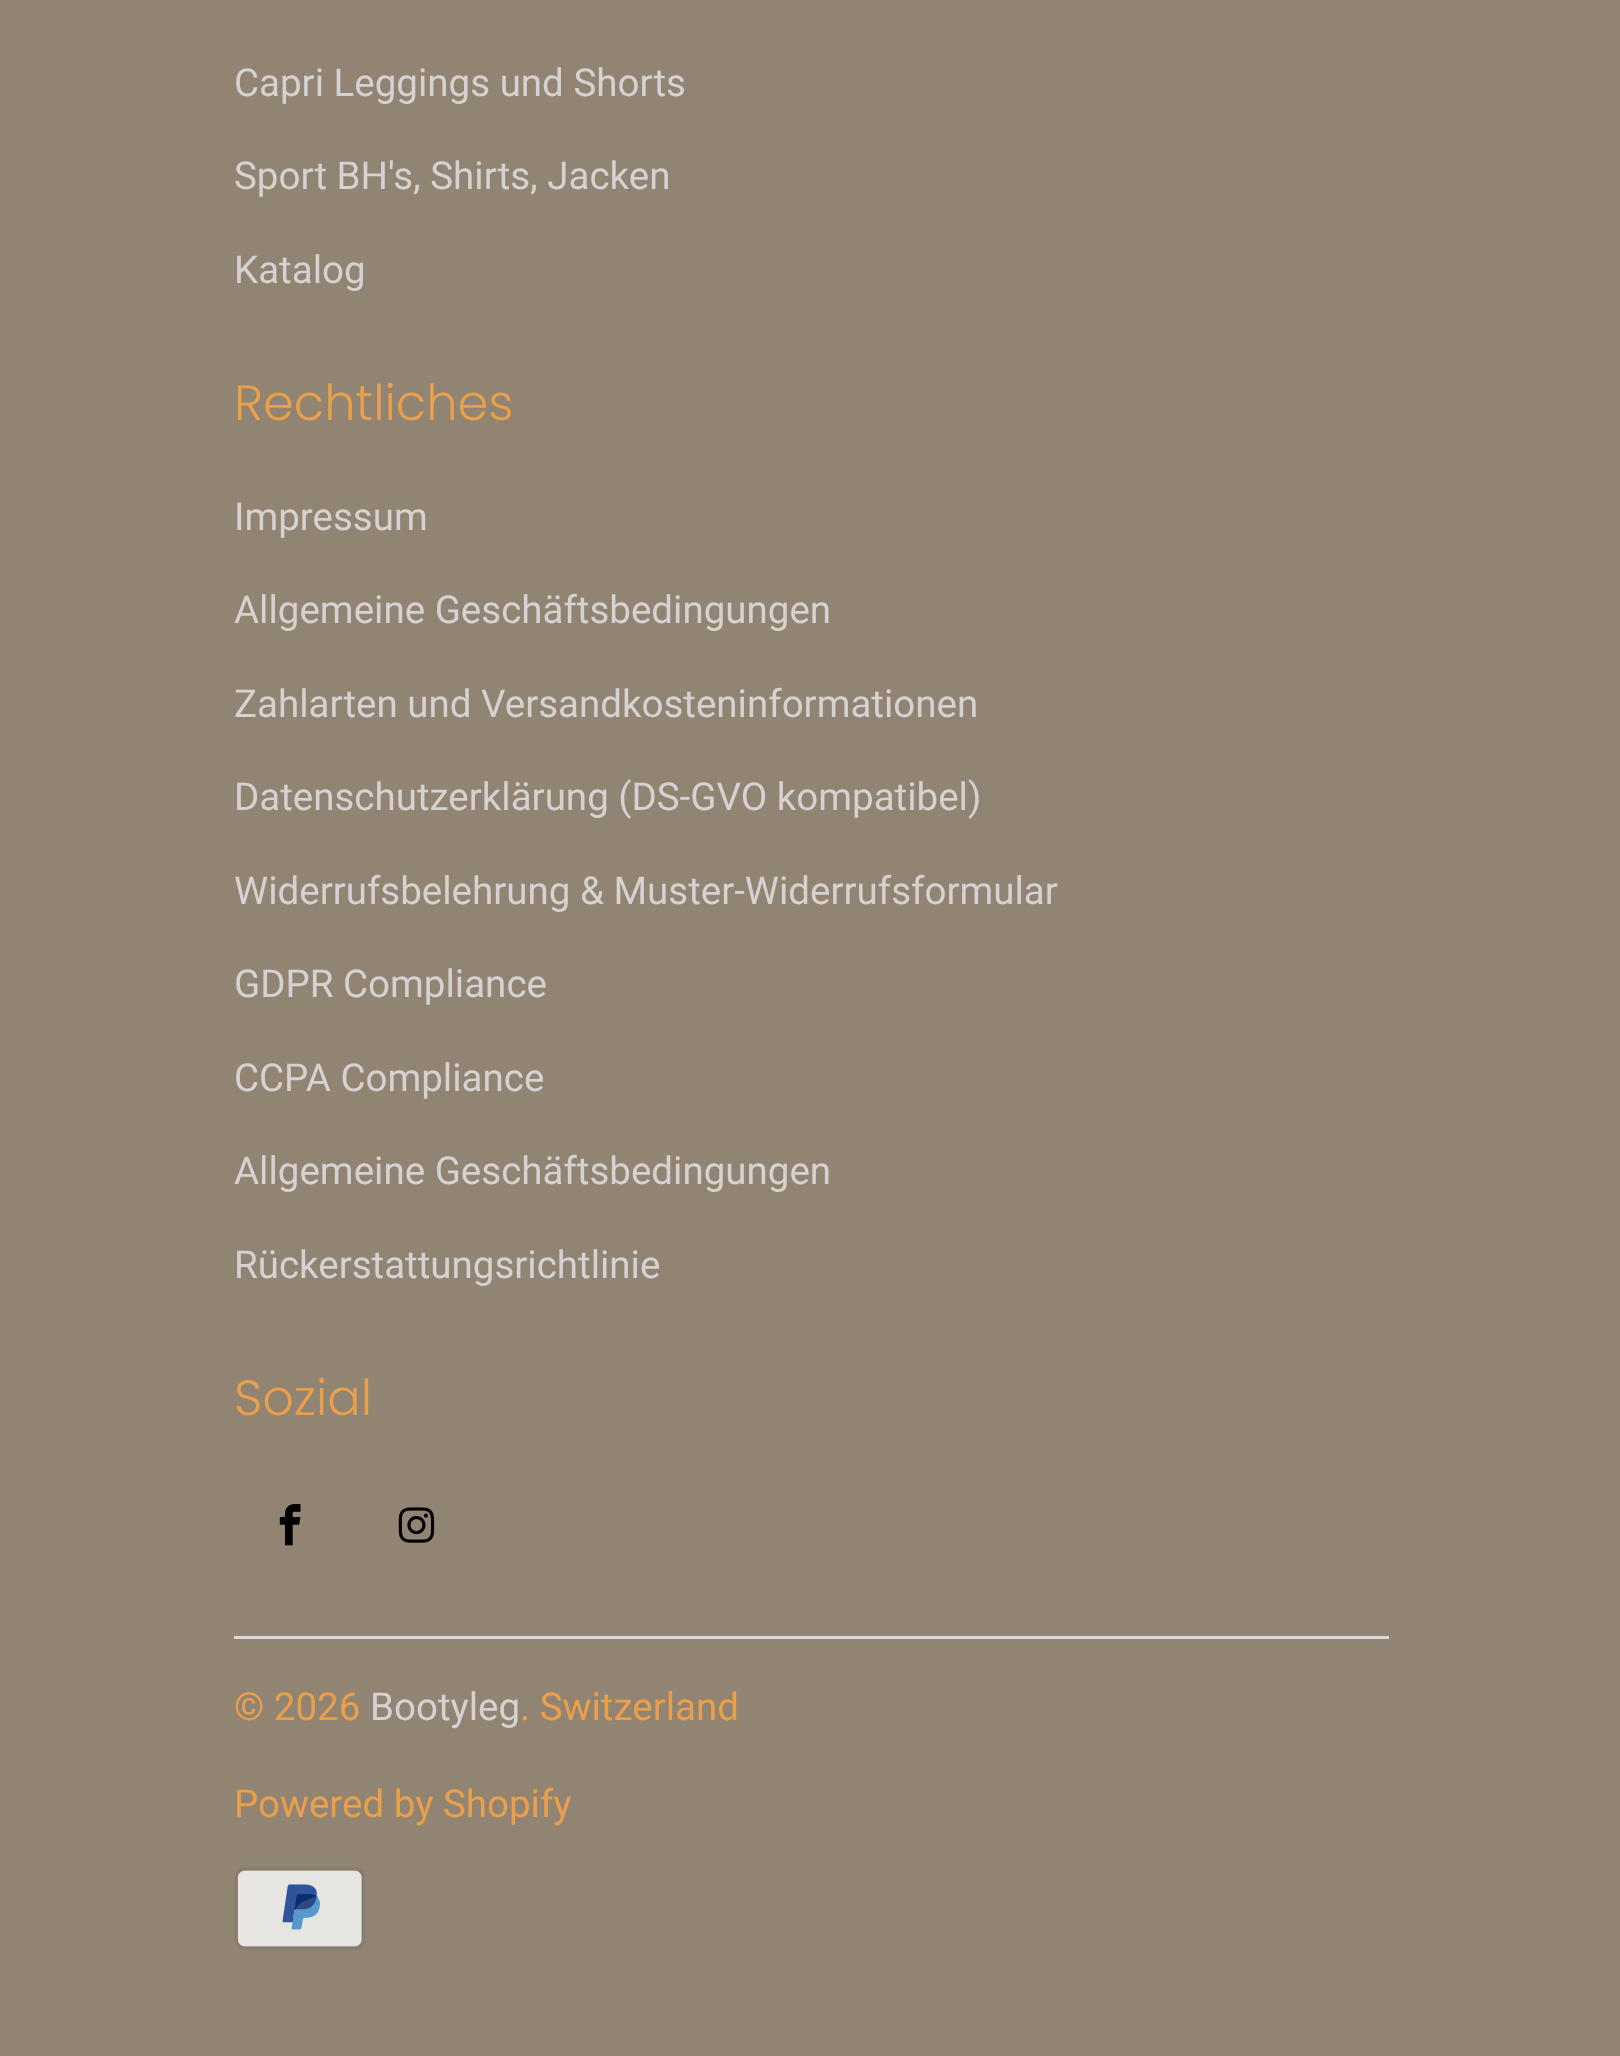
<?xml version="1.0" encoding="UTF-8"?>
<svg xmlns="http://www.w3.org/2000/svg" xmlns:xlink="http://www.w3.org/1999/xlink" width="1620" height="2056">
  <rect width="100%" height="100%" fill="#928473" />
  <image x="279" y="1504" width="22" height="42" xlink:href="image1.png" />
  <image x="398" y="1507" width="37" height="36" xlink:href="image2.png" />
  <rect x="234" y="1636" width="1155" height="3" fill="#d8d8d8" />
  <image x="234" y="1867" width="131" height="83" xlink:href="image3.png" />
  <text x="234" y="96" style="font-family: Roboto; font-size: 38.5px; fill: #d6d2d2">Capri Leggings und Shorts</text>
  <text x="234" y="189" style="font-family: Roboto; font-size: 38.5px; fill: #d6d2d2">Sport BH's, Shirts, Jacken</text>
  <text x="234" y="283" style="font-family: Roboto; font-size: 38.5px; fill: #d6d2d2">Katalog</text>
  <text x="234" y="420" style="font-family: Poppins; font-size: 49.5px; font-weight: 300; fill: #eaa04b">Rechtliches</text>
  <text x="234" y="530" style="font-family: Roboto; font-size: 38.5px; fill: #d6d2d2">Impressum</text>
  <text x="234" y="623" style="font-family: Roboto; font-size: 38.5px; fill: #d6d2d2">Allgemeine Geschäftsbedingungen</text>
  <text x="234" y="717" style="font-family: Roboto; font-size: 38.5px; fill: #d6d2d2">Zahlarten und Versandkosteninformationen</text>
  <text x="234" y="810" style="font-family: Roboto; font-size: 38.5px; fill: #d6d2d2">Datenschutzerklärung (DS-GVO kompatibel)</text>
  <text x="234" y="904" style="font-family: Roboto; font-size: 38.5px; fill: #d6d2d2">Widerrufsbelehrung &amp; Muster-Widerrufsformular</text>
  <text x="234" y="997" style="font-family: Roboto; font-size: 38.5px; fill: #d6d2d2">GDPR Compliance</text>
  <text x="234" y="1091" style="font-family: Roboto; font-size: 38.5px; fill: #d6d2d2">CCPA Compliance</text>
  <text x="234" y="1184" style="font-family: Roboto; font-size: 38.5px; fill: #d6d2d2">Allgemeine Geschäftsbedingungen</text>
  <text x="234" y="1278" style="font-family: Roboto; font-size: 38.5px; fill: #d6d2d2">Rückerstattungsrichtlinie</text>
  <text x="234" y="1415" style="font-family: Poppins; font-size: 49.5px; font-weight: 300; fill: #eaa04b">Sozial</text>
  <text x="234" y="1720" style="font-family: Roboto; font-size: 38.5px; fill: #eaa04b">© 2026</text>
  <text x="370" y="1720" style="font-family: Roboto; font-size: 38.5px; fill: #d6d2d2">Bootyleg</text>
  <text x="520" y="1720" style="font-family: Roboto; font-size: 38.5px; fill: #eaa04b">. Switzerland</text>
  <text x="234" y="1817" style="font-family: Roboto; font-size: 38.5px; fill: #eaa04b">Powered by Shopify</text>
</svg>
